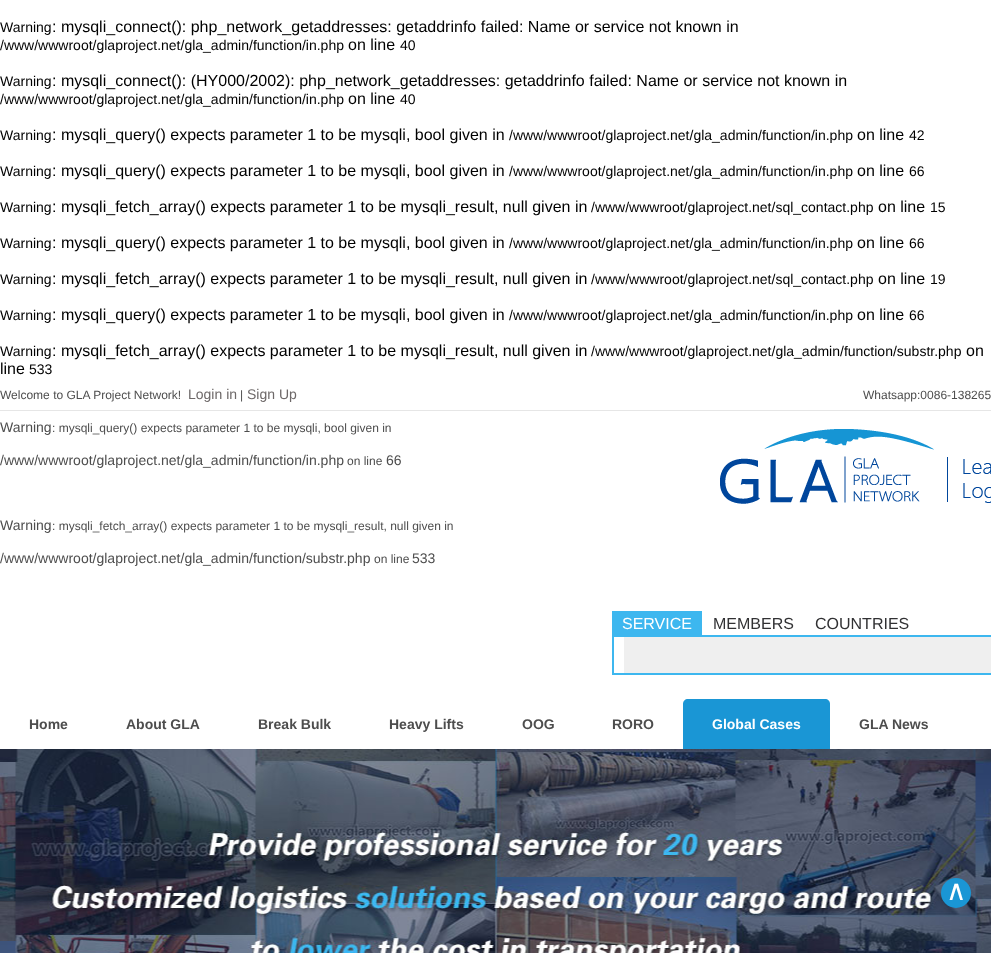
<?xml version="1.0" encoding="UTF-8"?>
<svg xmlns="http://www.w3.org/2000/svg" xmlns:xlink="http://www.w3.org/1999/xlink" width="991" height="953">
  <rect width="100%" height="100%" fill="#ffffff" />
  <rect y="410" width="991" height="1" fill="#e6e6e6" />
  <image x="720" y="429" width="271" height="75" xlink:href="image1.png" />
  <rect x="612" y="611" width="90" height="24" fill="#3db7ef" />
  <rect x="613" y="636" width="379" height="38" fill="none" stroke="#3db7ef" stroke-width="2" />
  <rect x="624" y="637" width="367" height="36" fill="#efefef" />
  <path d="M 688 699 h 137 c 3 0 5 2 5 5 v 45 h -147 v -45 c 0 -3 2 -5 5 -5 z" fill="#1a96d5" />
  <image x="0" y="749" width="991" height="204" xlink:href="image2.png" />
  <circle cx="956" cy="893" r="15" fill="#1a96d5" />
  <text x="0" y="32" style="font-family: Liberation Sans; font-size: 14px; fill: #000000">Warning</text>
  <text x="52" y="32" style="font-family: Liberation Sans; font-size: 16px; fill: #000000">: mysqli_connect(): php_network_getaddresses: getaddrinfo failed: Name or service not known in</text>
  <text x="0" y="50" style="font-family: Liberation Sans; font-size: 14px; fill: #000000">/www/wwwroot/glaproject.net/gla_admin/function/in.php</text>
  <text x="348" y="50" style="font-family: Liberation Sans; font-size: 16px; fill: #000000">on line</text>
  <text x="400" y="50" style="font-family: Liberation Sans; font-size: 14px; fill: #000000">40</text>
  <text x="0" y="86" style="font-family: Liberation Sans; font-size: 14px; fill: #000000">Warning</text>
  <text x="52" y="86" style="font-family: Liberation Sans; font-size: 16px; fill: #000000">: mysqli_connect(): (HY000/2002): php_network_getaddresses: getaddrinfo failed: Name or service not known in</text>
  <text x="0" y="104" style="font-family: Liberation Sans; font-size: 14px; fill: #000000">/www/wwwroot/glaproject.net/gla_admin/function/in.php</text>
  <text x="348" y="104" style="font-family: Liberation Sans; font-size: 16px; fill: #000000">on line</text>
  <text x="400" y="104" style="font-family: Liberation Sans; font-size: 14px; fill: #000000">40</text>
  <text x="0" y="140" style="font-family: Liberation Sans; font-size: 14px; fill: #000000">Warning</text>
  <text x="52" y="140" style="font-family: Liberation Sans; font-size: 16px; fill: #000000">: mysqli_query() expects parameter 1 to be mysqli, bool given in</text>
  <text x="509" y="140" style="font-family: Liberation Sans; font-size: 14px; fill: #000000">/www/wwwroot/glaproject.net/gla_admin/function/in.php</text>
  <text x="857" y="140" style="font-family: Liberation Sans; font-size: 16px; fill: #000000">on line</text>
  <text x="909" y="140" style="font-family: Liberation Sans; font-size: 14px; fill: #000000">42</text>
  <text x="0" y="176" style="font-family: Liberation Sans; font-size: 14px; fill: #000000">Warning</text>
  <text x="52" y="176" style="font-family: Liberation Sans; font-size: 16px; fill: #000000">: mysqli_query() expects parameter 1 to be mysqli, bool given in</text>
  <text x="509" y="176" style="font-family: Liberation Sans; font-size: 14px; fill: #000000">/www/wwwroot/glaproject.net/gla_admin/function/in.php</text>
  <text x="857" y="176" style="font-family: Liberation Sans; font-size: 16px; fill: #000000">on line</text>
  <text x="909" y="176" style="font-family: Liberation Sans; font-size: 14px; fill: #000000">66</text>
  <text x="0" y="212" style="font-family: Liberation Sans; font-size: 14px; fill: #000000">Warning</text>
  <text x="52" y="212" style="font-family: Liberation Sans; font-size: 16px; fill: #000000">: mysqli_fetch_array() expects parameter 1 to be mysqli_result, null given in</text>
  <text x="591" y="212" style="font-family: Liberation Sans; font-size: 14px; fill: #000000">/www/wwwroot/glaproject.net/sql_contact.php</text>
  <text x="878" y="212" style="font-family: Liberation Sans; font-size: 16px; fill: #000000">on line</text>
  <text x="930" y="212" style="font-family: Liberation Sans; font-size: 14px; fill: #000000">15</text>
  <text x="0" y="248" style="font-family: Liberation Sans; font-size: 14px; fill: #000000">Warning</text>
  <text x="52" y="248" style="font-family: Liberation Sans; font-size: 16px; fill: #000000">: mysqli_query() expects parameter 1 to be mysqli, bool given in</text>
  <text x="509" y="248" style="font-family: Liberation Sans; font-size: 14px; fill: #000000">/www/wwwroot/glaproject.net/gla_admin/function/in.php</text>
  <text x="857" y="248" style="font-family: Liberation Sans; font-size: 16px; fill: #000000">on line</text>
  <text x="909" y="248" style="font-family: Liberation Sans; font-size: 14px; fill: #000000">66</text>
  <text x="0" y="284" style="font-family: Liberation Sans; font-size: 14px; fill: #000000">Warning</text>
  <text x="52" y="284" style="font-family: Liberation Sans; font-size: 16px; fill: #000000">: mysqli_fetch_array() expects parameter 1 to be mysqli_result, null given in</text>
  <text x="591" y="284" style="font-family: Liberation Sans; font-size: 14px; fill: #000000">/www/wwwroot/glaproject.net/sql_contact.php</text>
  <text x="878" y="284" style="font-family: Liberation Sans; font-size: 16px; fill: #000000">on line</text>
  <text x="930" y="284" style="font-family: Liberation Sans; font-size: 14px; fill: #000000">19</text>
  <text x="0" y="320" style="font-family: Liberation Sans; font-size: 14px; fill: #000000">Warning</text>
  <text x="52" y="320" style="font-family: Liberation Sans; font-size: 16px; fill: #000000">: mysqli_query() expects parameter 1 to be mysqli, bool given in</text>
  <text x="509" y="320" style="font-family: Liberation Sans; font-size: 14px; fill: #000000">/www/wwwroot/glaproject.net/gla_admin/function/in.php</text>
  <text x="857" y="320" style="font-family: Liberation Sans; font-size: 16px; fill: #000000">on line</text>
  <text x="909" y="320" style="font-family: Liberation Sans; font-size: 14px; fill: #000000">66</text>
  <text x="0" y="356" style="font-family: Liberation Sans; font-size: 14px; fill: #000000">Warning</text>
  <text x="52" y="356" style="font-family: Liberation Sans; font-size: 16px; fill: #000000">: mysqli_fetch_array() expects parameter 1 to be mysqli_result, null given in</text>
  <text x="591" y="356" style="font-family: Liberation Sans; font-size: 14px; fill: #000000">/www/wwwroot/glaproject.net/gla_admin/function/substr.php</text>
  <text x="966" y="356" style="font-family: Liberation Sans; font-size: 16px; fill: #000000">on</text>
  <text x="0" y="374" style="font-family: Liberation Sans; font-size: 16px; fill: #000000">line</text>
  <text x="29" y="374" style="font-family: Liberation Sans; font-size: 14px; fill: #000000">533</text>
  <text x="0" y="399" style="font-family: Liberation Sans; font-size: 12px; fill: #4d4d4d">Welcome to GLA Project Network!</text>
  <text x="188" y="399" style="font-family: Liberation Sans; font-size: 14px; fill: #6d6868">Login in</text>
  <text x="240" y="399" style="font-family: Liberation Sans; font-size: 12px; fill: #4d4d4d">|</text>
  <text x="247" y="399" style="font-family: Liberation Sans; font-size: 14px; fill: #6d6868">Sign Up</text>
  <text x="0" y="432" style="font-family: Liberation Sans; font-size: 14px; fill: #4d4d4d">Warning</text>
  <text x="52" y="432" style="font-family: Liberation Sans; font-size: 12px; fill: #4d4d4d">: mysqli_query() expects parameter 1 to be mysqli, bool given in</text>
  <text x="0" y="465" style="font-family: Liberation Sans; font-size: 14px; fill: #4d4d4d">/www/wwwroot/glaproject.net/gla_admin/function/in.php</text>
  <text x="347" y="465" style="font-family: Liberation Sans; font-size: 12px; fill: #4d4d4d">on line</text>
  <text x="386" y="465" style="font-family: Liberation Sans; font-size: 14px; fill: #4d4d4d">66</text>
  <text x="0" y="530" style="font-family: Liberation Sans; font-size: 14px; fill: #4d4d4d">Warning</text>
  <text x="52" y="530" style="font-family: Liberation Sans; font-size: 12px; fill: #4d4d4d">: mysqli_fetch_array() expects parameter 1 to be mysqli_result, null given in</text>
  <text x="0" y="563" style="font-family: Liberation Sans; font-size: 14px; fill: #4d4d4d">/www/wwwroot/glaproject.net/gla_admin/function/substr.php</text>
  <text x="374" y="563" style="font-family: Liberation Sans; font-size: 12px; fill: #4d4d4d">on line</text>
  <text x="412" y="563" style="font-family: Liberation Sans; font-size: 14px; fill: #4d4d4d">533</text>
  <text x="863" y="399" style="font-family: Liberation Sans; font-size: 12px; fill: #4d4d4d">Whatsapp:0086-138265</text>
  <text x="622" y="629" style="font-family: Liberation Sans; font-size: 16px; fill: #ffffff">SERVICE</text>
  <text x="713" y="629" style="font-family: Liberation Sans; font-size: 16px; fill: #313133">MEMBERS</text>
  <text x="815" y="629" style="font-family: Liberation Sans; font-size: 16px; fill: #313133">COUNTRIES</text>
  <text x="29" y="729" style="font-family: Liberation Sans; font-size: 14px; font-weight: bold; fill: #4d4d4d">Home</text>
  <text x="126" y="729" style="font-family: Liberation Sans; font-size: 14px; font-weight: bold; fill: #4d4d4d">About GLA</text>
  <text x="258" y="729" style="font-family: Liberation Sans; font-size: 14px; font-weight: bold; fill: #4d4d4d">Break Bulk</text>
  <text x="389" y="729" style="font-family: Liberation Sans; font-size: 14px; font-weight: bold; fill: #4d4d4d">Heavy Lifts</text>
  <text x="522" y="729" style="font-family: Liberation Sans; font-size: 14px; font-weight: bold; fill: #4d4d4d">OOG</text>
  <text x="612" y="729" style="font-family: Liberation Sans; font-size: 14px; font-weight: bold; fill: #4d4d4d">RORO</text>
  <text x="712" y="729" style="font-family: Liberation Sans; font-size: 14px; font-weight: bold; fill: #ffffff">Global Cases</text>
  <text x="859" y="729" style="font-family: Liberation Sans; font-size: 14px; font-weight: bold; fill: #4d4d4d">GLA News</text>
  <text x="946" y="900" style="font-family: DejaVu Sans; font-size: 28px; fill: #ffffff">∧</text>
</svg>
